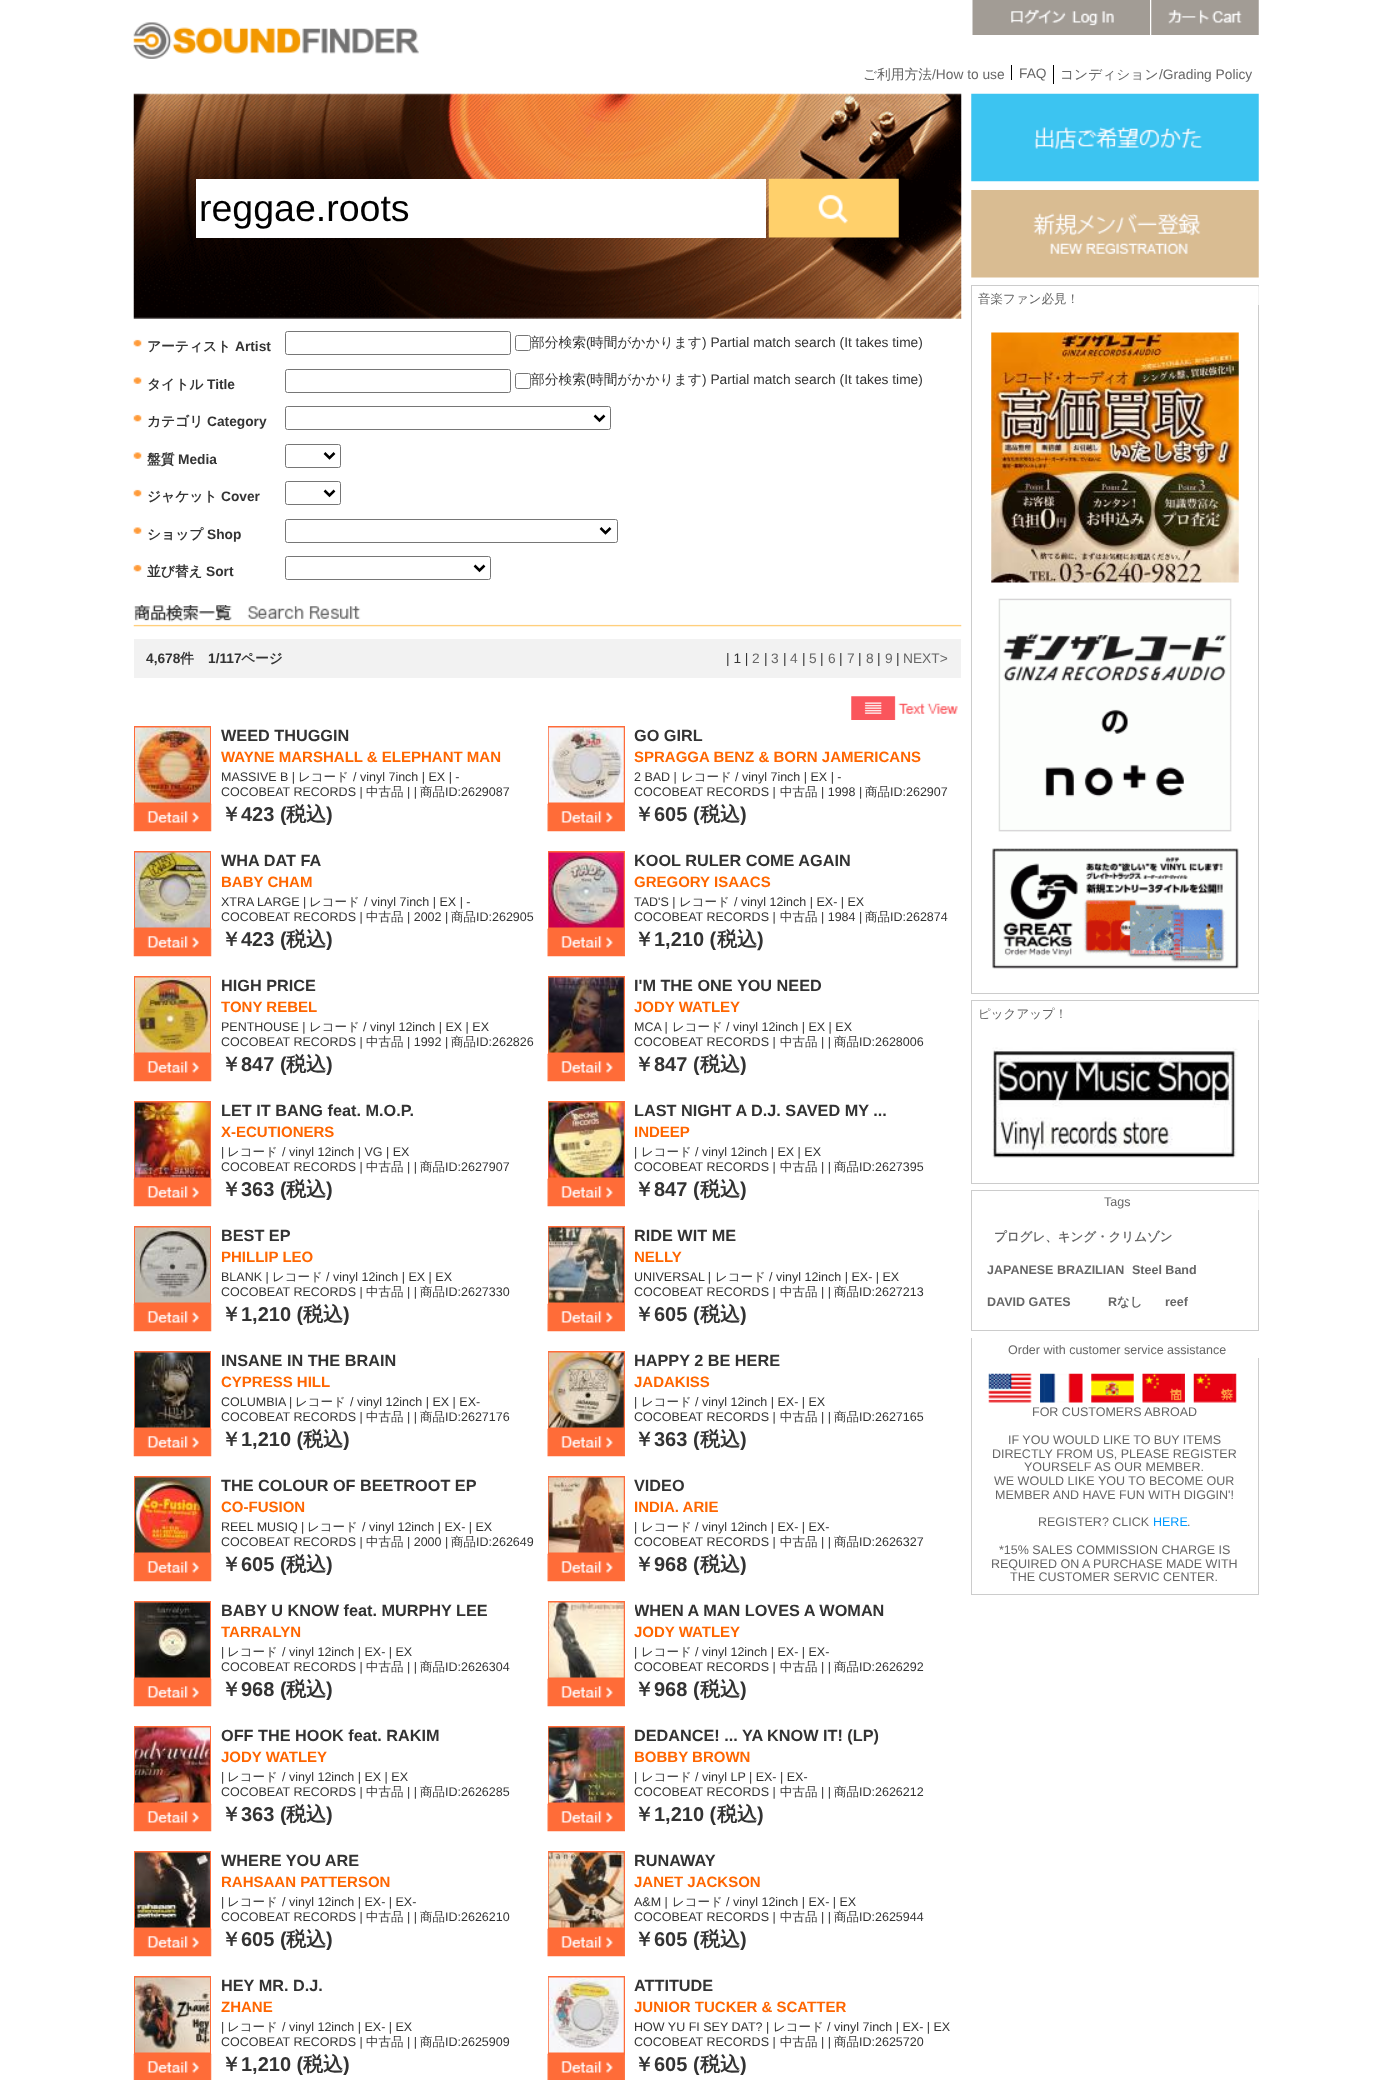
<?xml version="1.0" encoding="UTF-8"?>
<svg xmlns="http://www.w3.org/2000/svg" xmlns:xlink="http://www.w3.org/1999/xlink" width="1391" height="2080">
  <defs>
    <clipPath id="clip1"><rect x="221" y="726" width="319" height="99" /></clipPath>
    <clipPath id="clip2"><rect x="635" y="726" width="319" height="99" /></clipPath>
    <clipPath id="clip3"><rect x="221" y="851" width="319" height="99" /></clipPath>
    <clipPath id="clip4"><rect x="635" y="851" width="319" height="99" /></clipPath>
    <clipPath id="clip5"><rect x="221" y="999" width="319" height="17" /></clipPath>
    <clipPath id="clip6"><rect x="221" y="976" width="319" height="99" /></clipPath>
    <clipPath id="clip7"><rect x="635" y="976" width="319" height="99" /></clipPath>
    <clipPath id="clip8"><rect x="221" y="1101" width="319" height="99" /></clipPath>
    <clipPath id="clip9"><rect x="635" y="1101" width="319" height="99" /></clipPath>
    <clipPath id="clip10"><rect x="221" y="1226" width="319" height="99" /></clipPath>
    <clipPath id="clip11"><rect x="635" y="1226" width="319" height="99" /></clipPath>
    <clipPath id="clip12"><rect x="221" y="1351" width="319" height="99" /></clipPath>
    <clipPath id="clip13"><rect x="635" y="1351" width="319" height="99" /></clipPath>
    <clipPath id="clip14"><rect x="221" y="1476" width="319" height="99" /></clipPath>
    <clipPath id="clip15"><rect x="635" y="1476" width="319" height="99" /></clipPath>
    <clipPath id="clip16"><rect x="221" y="1624" width="319" height="17" /></clipPath>
    <clipPath id="clip17"><rect x="221" y="1601" width="319" height="99" /></clipPath>
    <clipPath id="clip18"><rect x="635" y="1601" width="319" height="23" /></clipPath>
    <clipPath id="clip19"><rect x="635" y="1601" width="319" height="99" /></clipPath>
    <clipPath id="clip20"><rect x="221" y="1726" width="319" height="99" /></clipPath>
    <clipPath id="clip21"><rect x="635" y="1726" width="319" height="99" /></clipPath>
    <clipPath id="clip22"><rect x="221" y="1851" width="319" height="99" /></clipPath>
    <clipPath id="clip23"><rect x="635" y="1851" width="319" height="99" /></clipPath>
    <clipPath id="clip24"><rect x="221" y="1976" width="319" height="99" /></clipPath>
    <clipPath id="clip25"><rect x="635" y="1976" width="319" height="99" /></clipPath>
  </defs>
  <rect width="100%" height="100%" fill="#ffffff" />
  <image x="972" y="0" width="178" height="35" xlink:href="image1.png" />
  <image x="1151" y="0" width="108" height="35" xlink:href="image2.png" />
  <image x="133" y="22" width="286" height="37" xlink:href="image3.png" />
  <rect x="1011" y="65" width="1" height="15" fill="#000000" />
  <rect x="1053" y="65" width="1" height="19" fill="#000000" />
  <image x="133" y="93" width="829" height="226" xlink:href="image4.png" />
  <rect x="196" y="179" width="570" height="59" fill="#ffffff" />
  <image x="768" y="178" width="131" height="60" xlink:href="image5.png" />
  <image x="133" y="339" width="9" height="8" xlink:href="image6.png" />
  <rect x="285.5" y="331.5" width="225" height="23" rx="2" fill="none" stroke="#767676" />
  <rect x="515.5" y="335.5" width="15" height="15" rx="2" fill="none" stroke="#767676" />
  <image x="133" y="377" width="9" height="7" xlink:href="image7.png" />
  <rect x="285.5" y="369.5" width="225" height="23" rx="2" fill="none" stroke="#767676" />
  <rect x="515.5" y="373.5" width="15" height="15" rx="2" fill="none" stroke="#767676" />
  <image x="133" y="414" width="9" height="8" xlink:href="image6.png" />
  <rect x="285.5" y="406.5" width="325" height="23" rx="2" fill="none" stroke="#767676" />
  <path d="M 594.5 415.5 l 5 5 l 5 -5" fill="none" stroke="#000000" stroke-width="2.5" />
  <image x="133" y="452" width="9" height="7" xlink:href="image7.png" />
  <rect x="285.5" y="444.5" width="55" height="23" rx="2" fill="none" stroke="#767676" />
  <path d="M 324.5 453 l 5 5 l 5 -5" fill="none" stroke="#000000" stroke-width="2.5" />
  <image x="133" y="489" width="9" height="8" xlink:href="image6.png" />
  <rect x="285.5" y="481.5" width="55" height="23" rx="2" fill="none" stroke="#767676" />
  <path d="M 324.5 490.5 l 5 5 l 5 -5" fill="none" stroke="#000000" stroke-width="2.5" />
  <image x="133" y="527" width="9" height="7" xlink:href="image7.png" />
  <rect x="285.5" y="519.5" width="332" height="23" rx="2" fill="none" stroke="#767676" />
  <path d="M 600.5 528 l 5 5 l 5 -5" fill="none" stroke="#000000" stroke-width="2.5" />
  <image x="133" y="564" width="9" height="8" xlink:href="image6.png" />
  <rect x="285.5" y="556.5" width="205" height="23" rx="2" fill="none" stroke="#767676" />
  <path d="M 474.5 565.5 l 5 5 l 5 -5" fill="none" stroke="#000000" stroke-width="2.5" />
  <image x="133" y="605" width="829" height="22" xlink:href="image8.png" />
  <rect x="134" y="639" width="827" height="39" fill="#f2f2f2" />
  <image x="851" y="696" width="107" height="24" xlink:href="image9.png" />
  <rect x="134" y="726" width="77" height="78" fill="#ff6b38" />
  <image x="135" y="727" width="75" height="76" xlink:href="image10.png" />
  <image x="133" y="803" width="79" height="29" xlink:href="image11.png" />
  <rect x="548" y="726" width="77" height="78" fill="#ff6b38" />
  <image x="548" y="727" width="76" height="76" xlink:href="image12.png" />
  <image x="547" y="803" width="78" height="29" xlink:href="image13.png" />
  <rect x="134" y="851" width="77" height="78" fill="#ff6b38" />
  <image x="135" y="852" width="75" height="76" xlink:href="image14.png" />
  <image x="133" y="928" width="79" height="29" xlink:href="image11.png" />
  <rect x="548" y="851" width="77" height="78" fill="#ff6b38" />
  <image x="548" y="852" width="76" height="76" xlink:href="image15.png" />
  <image x="547" y="928" width="78" height="29" xlink:href="image13.png" />
  <rect x="134" y="976" width="77" height="78" fill="#ff6b38" />
  <image x="135" y="977" width="75" height="76" xlink:href="image16.png" />
  <image x="133" y="1053" width="79" height="29" xlink:href="image11.png" />
  <rect x="548" y="976" width="77" height="78" fill="#ff6b38" />
  <image x="548" y="977" width="76" height="76" xlink:href="image17.png" />
  <image x="547" y="1053" width="78" height="29" xlink:href="image13.png" />
  <rect x="134" y="1101" width="77" height="78" fill="#ff6b38" />
  <image x="135" y="1102" width="75" height="76" xlink:href="image18.png" />
  <image x="133" y="1178" width="79" height="29" xlink:href="image11.png" />
  <rect x="548" y="1101" width="77" height="78" fill="#ff6b38" />
  <image x="548" y="1102" width="76" height="76" xlink:href="image19.png" />
  <image x="547" y="1178" width="78" height="29" xlink:href="image13.png" />
  <rect x="134" y="1226" width="77" height="78" fill="#ff6b38" />
  <image x="135" y="1227" width="75" height="76" xlink:href="image20.png" />
  <image x="133" y="1303" width="79" height="29" xlink:href="image11.png" />
  <rect x="548" y="1226" width="77" height="78" fill="#ff6b38" />
  <image x="548" y="1227" width="76" height="76" xlink:href="image21.png" />
  <image x="547" y="1303" width="78" height="29" xlink:href="image13.png" />
  <rect x="134" y="1351" width="77" height="78" fill="#ff6b38" />
  <image x="135" y="1352" width="75" height="76" xlink:href="image22.png" />
  <image x="133" y="1428" width="79" height="29" xlink:href="image11.png" />
  <rect x="548" y="1351" width="77" height="78" fill="#ff6b38" />
  <image x="548" y="1352" width="76" height="76" xlink:href="image23.png" />
  <image x="547" y="1428" width="78" height="29" xlink:href="image13.png" />
  <rect x="134" y="1476" width="77" height="78" fill="#ff6b38" />
  <image x="135" y="1477" width="75" height="76" xlink:href="image24.png" />
  <image x="133" y="1553" width="79" height="29" xlink:href="image25.png" />
  <rect x="548" y="1476" width="77" height="78" fill="#ff6b38" />
  <image x="548" y="1477" width="76" height="76" xlink:href="image26.png" />
  <image x="547" y="1553" width="78" height="29" xlink:href="image27.png" />
  <rect x="134" y="1601" width="77" height="78" fill="#ff6b38" />
  <image x="135" y="1602" width="75" height="76" xlink:href="image28.png" />
  <image x="133" y="1678" width="79" height="29" xlink:href="image11.png" />
  <rect x="548" y="1601" width="77" height="78" fill="#ff6b38" />
  <image x="548" y="1602" width="76" height="76" xlink:href="image29.png" />
  <image x="547" y="1678" width="78" height="29" xlink:href="image13.png" />
  <rect x="134" y="1726" width="77" height="78" fill="#ff6b38" />
  <image x="135" y="1727" width="75" height="76" xlink:href="image30.png" />
  <image x="133" y="1803" width="79" height="29" xlink:href="image11.png" />
  <rect x="548" y="1726" width="77" height="78" fill="#ff6b38" />
  <image x="548" y="1727" width="76" height="76" xlink:href="image31.png" />
  <image x="547" y="1803" width="78" height="29" xlink:href="image13.png" />
  <rect x="134" y="1851" width="77" height="78" fill="#ff6b38" />
  <image x="135" y="1852" width="75" height="76" xlink:href="image32.png" />
  <image x="133" y="1928" width="79" height="29" xlink:href="image11.png" />
  <rect x="548" y="1851" width="77" height="78" fill="#ff6b38" />
  <image x="548" y="1852" width="76" height="76" xlink:href="image33.png" />
  <image x="547" y="1928" width="78" height="29" xlink:href="image13.png" />
  <rect x="134" y="1976" width="77" height="78" fill="#ff6b38" />
  <image x="135" y="1977" width="75" height="76" xlink:href="image34.png" />
  <image x="133" y="2053" width="79" height="27" xlink:href="image35.png" />
  <rect x="548" y="1976" width="77" height="78" fill="#ff6b38" />
  <image x="548" y="1977" width="76" height="76" xlink:href="image36.png" />
  <image x="547" y="2053" width="78" height="27" xlink:href="image37.png" />
  <image x="971" y="93" width="288" height="89" xlink:href="image38.png" />
  <image x="971" y="190" width="288" height="88" xlink:href="image39.png" />
  <rect x="971.5" y="285.5" width="287" height="708" fill="none" stroke="#cccccc" />
  <image x="1258" y="286" width="1" height="19" xlink:href="image40.png" />
  <image x="991" y="332" width="248" height="251" xlink:href="image41.png" />
  <image x="998" y="598" width="234" height="234" xlink:href="image42.png" />
  <image x="992" y="848" width="247" height="121" xlink:href="image43.png" />
  <rect x="971.5" y="1000.5" width="287" height="183" fill="none" stroke="#cccccc" />
  <image x="1258" y="1001" width="1" height="19" xlink:href="image40.png" />
  <image x="992" y="1047" width="246" height="111" xlink:href="image44.png" />
  <rect x="971.5" y="1190.5" width="287" height="140" fill="none" stroke="#cccccc" />
  <image x="1258" y="1191" width="1" height="19" xlink:href="image40.png" />
  <rect x="971.5" y="1338.5" width="287" height="256" fill="none" stroke="#cccccc" />
  <rect x="972" y="1338" width="287" height="20" fill="#ffffff" />
  <image x="988" y="1373" width="44" height="30" xlink:href="image45.png" />
  <image x="1040" y="1373" width="43" height="30" xlink:href="image46.png" />
  <image x="1091" y="1373" width="43" height="30" xlink:href="image47.png" />
  <image x="1142" y="1373" width="43" height="30" xlink:href="image48.png" />
  <image x="1193" y="1373" width="44" height="30" xlink:href="image49.png" />
  <text x="863" y="79" style="font-family: WenQuanYi Zen Hei; font-size: 13.75px; font-weight: 500; fill: #666666">ご利用方法</text>
  <text x="932" y="79" style="font-family: Liberation Sans; font-size: 13.75px; fill: #666666">/How to use</text>
  <text x="1019" y="78" style="font-family: Liberation Sans; font-size: 13.75px; fill: #666666">FAQ</text>
  <text x="1060" y="79" style="font-family: WenQuanYi Zen Hei; font-size: 13.75px; font-weight: 500; fill: #666666">コンディション</text>
  <text x="1159" y="79" style="font-family: Liberation Sans; font-size: 13.75px; fill: #666666">/Grading Policy</text>
  <text x="199" y="221" style="font-family: Liberation Sans; font-size: 37.5px; fill: #000000">reggae.roots</text>
  <text x="147" y="351" style="font-family: WenQuanYi Zen Hei; font-size: 13.75px; font-weight: bold; fill: #333333">アーティスト</text>
  <text x="235" y="351" style="font-family: Liberation Sans; font-size: 13.75px; font-weight: bold; fill: #333333">Artist</text>
  <text x="531" y="347" style="font-family: WenQuanYi Zen Hei; font-size: 13.75px; font-weight: 500; fill: #333333">部分検索</text>
  <text x="586" y="347" style="font-family: Liberation Sans; font-size: 13.75px; fill: #333333">(</text>
  <text x="590" y="347" style="font-family: WenQuanYi Zen Hei; font-size: 13.75px; font-weight: 500; fill: #333333">時間がかかります</text>
  <text x="702" y="347" style="font-family: Liberation Sans; font-size: 13.75px; fill: #333333">) Partial match search (It takes time)</text>
  <text x="147" y="389" style="font-family: WenQuanYi Zen Hei; font-size: 13.75px; font-weight: bold; fill: #333333">タイトル</text>
  <text x="207" y="389" style="font-family: Liberation Sans; font-size: 13.75px; font-weight: bold; fill: #333333">Title</text>
  <text x="531" y="384" style="font-family: WenQuanYi Zen Hei; font-size: 13.75px; font-weight: 500; fill: #333333">部分検索</text>
  <text x="586" y="384" style="font-family: Liberation Sans; font-size: 13.75px; fill: #333333">(</text>
  <text x="590" y="384" style="font-family: WenQuanYi Zen Hei; font-size: 13.75px; font-weight: 500; fill: #333333">時間がかかります</text>
  <text x="702" y="384" style="font-family: Liberation Sans; font-size: 13.75px; fill: #333333">) Partial match search (It takes time)</text>
  <text x="147" y="426" style="font-family: WenQuanYi Zen Hei; font-size: 13.75px; font-weight: bold; fill: #333333">カテゴリ</text>
  <text x="207" y="426" style="font-family: Liberation Sans; font-size: 13.75px; font-weight: bold; fill: #333333">Category</text>
  <text x="147" y="464" style="font-family: WenQuanYi Zen Hei; font-size: 13.75px; font-weight: bold; fill: #333333">盤質</text>
  <text x="178" y="464" style="font-family: Liberation Sans; font-size: 13.75px; font-weight: bold; fill: #333333">Media</text>
  <text x="147" y="501" style="font-family: WenQuanYi Zen Hei; font-size: 13.75px; font-weight: bold; fill: #333333">ジャケット</text>
  <text x="221" y="501" style="font-family: Liberation Sans; font-size: 13.75px; font-weight: bold; fill: #333333">Cover</text>
  <text x="147" y="539" style="font-family: WenQuanYi Zen Hei; font-size: 13.75px; font-weight: bold; fill: #333333">ショップ</text>
  <text x="207" y="539" style="font-family: Liberation Sans; font-size: 13.75px; font-weight: bold; fill: #333333">Shop</text>
  <text x="147" y="576" style="font-family: WenQuanYi Zen Hei; font-size: 13.75px; font-weight: bold; fill: #333333">並び替え</text>
  <text x="206" y="576" style="font-family: Liberation Sans; font-size: 13.75px; font-weight: bold; fill: #333333">Sort</text>
  <text x="146" y="663" style="font-family: Liberation Sans; font-size: 13.75px; font-weight: bold; fill: #333333">4,678</text>
  <text x="180" y="663" style="font-family: WenQuanYi Zen Hei; font-size: 13.75px; font-weight: bold; fill: #333333">件</text>
  <text x="208" y="663" style="font-family: Liberation Sans; font-size: 13.75px; font-weight: bold; fill: #333333">1/117</text>
  <text x="241" y="663" style="font-family: WenQuanYi Zen Hei; font-size: 13.75px; font-weight: bold; fill: #333333">ページ</text>
  <text x="726" y="663" style="font-family: Liberation Sans; font-size: 13.75px; fill: #333333">| 1 |</text>
  <text x="752" y="663" style="font-family: Liberation Sans; font-size: 13.75px; fill: #666666">2</text>
  <text x="764" y="663" style="font-family: Liberation Sans; font-size: 13.75px; fill: #333333">|</text>
  <text x="771" y="663" style="font-family: Liberation Sans; font-size: 13.75px; fill: #666666">3</text>
  <text x="783" y="663" style="font-family: Liberation Sans; font-size: 13.75px; fill: #333333">|</text>
  <text x="790" y="663" style="font-family: Liberation Sans; font-size: 13.75px; fill: #666666">4</text>
  <text x="802" y="663" style="font-family: Liberation Sans; font-size: 13.75px; fill: #333333">|</text>
  <text x="809" y="663" style="font-family: Liberation Sans; font-size: 13.75px; fill: #666666">5</text>
  <text x="820" y="663" style="font-family: Liberation Sans; font-size: 13.75px; fill: #333333">|</text>
  <text x="828" y="663" style="font-family: Liberation Sans; font-size: 13.75px; fill: #666666">6</text>
  <text x="839" y="663" style="font-family: Liberation Sans; font-size: 13.75px; fill: #333333">|</text>
  <text x="847" y="663" style="font-family: Liberation Sans; font-size: 13.75px; fill: #666666">7</text>
  <text x="858" y="663" style="font-family: Liberation Sans; font-size: 13.75px; fill: #333333">|</text>
  <text x="866" y="663" style="font-family: Liberation Sans; font-size: 13.75px; fill: #666666">8</text>
  <text x="877" y="663" style="font-family: Liberation Sans; font-size: 13.75px; fill: #333333">|</text>
  <text x="885" y="663" style="font-family: Liberation Sans; font-size: 13.75px; fill: #666666">9</text>
  <text x="896" y="663" style="font-family: Liberation Sans; font-size: 13.75px; fill: #333333">|</text>
  <text x="903" y="663" style="font-family: Liberation Sans; font-size: 13.75px; fill: #666666">NEXT&gt;</text>
  <text x="221" y="741" style="font-family: Liberation Sans; font-size: 16.25px; font-weight: bold; fill: #333333">WEED THUGGIN</text>
  <text x="221" y="762" style="font-family: Liberation Sans; font-size: 15px; font-weight: bold; fill: #ff6600">WAYNE MARSHALL &amp; ELEPHANT MAN</text>
  <text x="221" y="781" style="font-family: Liberation Sans; font-size: 12.5px; fill: #333333">MASSIVE B |</text>
  <text x="298" y="781" style="font-family: WenQuanYi Zen Hei; font-size: 12.5px; font-weight: 500; fill: #333333">レコード</text>
  <text x="353" y="781" style="font-family: Liberation Sans; font-size: 12.5px; fill: #333333">/ vinyl 7inch | EX | -</text>
  <text x="221" y="796" style="font-family: Liberation Sans; font-size: 12.5px; fill: #333333">COCOBEAT RECORDS |</text>
  <text x="366" y="796" style="font-family: WenQuanYi Zen Hei; font-size: 12.5px; font-weight: 500; fill: #333333">中古品</text>
  <text x="407" y="796" style="font-family: Liberation Sans; font-size: 12.5px; fill: #333333">| |</text>
  <text x="420" y="796" style="font-family: WenQuanYi Zen Hei; font-size: 12.5px; font-weight: 500; fill: #333333">商品</text>
  <text x="445" y="796" style="font-family: Liberation Sans; font-size: 12.5px; fill: #333333">ID:2629087</text>
  <text x="221" y="821" style="font-family: WenQuanYi Zen Hei; font-size: 20px; font-weight: bold; fill: #333333">￥</text>
  <g clip-path="url(#clip1)">
    <text x="241" y="821" style="font-family: Liberation Sans; font-size: 20px; font-weight: bold; fill: #333333">423 (</text>
  </g>
  <text x="286" y="821" style="font-family: WenQuanYi Zen Hei; font-size: 20px; font-weight: bold; fill: #333333">税込</text>
  <g clip-path="url(#clip1)">
    <text x="326" y="821" style="font-family: Liberation Sans; font-size: 20px; font-weight: bold; fill: #333333">)</text>
  </g>
  <text x="634" y="741" style="font-family: Liberation Sans; font-size: 16.25px; font-weight: bold; fill: #333333">GO GIRL</text>
  <text x="634" y="762" style="font-family: Liberation Sans; font-size: 15px; font-weight: bold; fill: #ff6600">SPRAGGA BENZ &amp; BORN JAMERICANS</text>
  <text x="634" y="781" style="font-family: Liberation Sans; font-size: 12.5px; fill: #333333">2 BAD |</text>
  <text x="681" y="781" style="font-family: WenQuanYi Zen Hei; font-size: 12.5px; font-weight: 500; fill: #333333">レコード</text>
  <text x="735" y="781" style="font-family: Liberation Sans; font-size: 12.5px; fill: #333333">/ vinyl 7inch | EX | -</text>
  <text x="634" y="796" style="font-family: Liberation Sans; font-size: 12.5px; fill: #333333">COCOBEAT RECORDS |</text>
  <text x="780" y="796" style="font-family: WenQuanYi Zen Hei; font-size: 12.5px; font-weight: 500; fill: #333333">中古品</text>
  <text x="821" y="796" style="font-family: Liberation Sans; font-size: 12.5px; fill: #333333">| 1998 |</text>
  <text x="865" y="796" style="font-family: WenQuanYi Zen Hei; font-size: 12.5px; font-weight: 500; fill: #333333">商品</text>
  <text x="890" y="796" style="font-family: Liberation Sans; font-size: 12.5px; fill: #333333">ID:262907</text>
  <text x="634" y="821" style="font-family: WenQuanYi Zen Hei; font-size: 20px; font-weight: bold; fill: #333333">￥</text>
  <g clip-path="url(#clip2)">
    <text x="654" y="821" style="font-family: Liberation Sans; font-size: 20px; font-weight: bold; fill: #333333">605 (</text>
  </g>
  <text x="700" y="821" style="font-family: WenQuanYi Zen Hei; font-size: 20px; font-weight: bold; fill: #333333">税込</text>
  <g clip-path="url(#clip2)">
    <text x="740" y="821" style="font-family: Liberation Sans; font-size: 20px; font-weight: bold; fill: #333333">)</text>
  </g>
  <text x="221" y="866" style="font-family: Liberation Sans; font-size: 16.25px; font-weight: bold; fill: #333333">WHA DAT FA</text>
  <text x="221" y="887" style="font-family: Liberation Sans; font-size: 15px; font-weight: bold; fill: #ff6600">BABY CHAM</text>
  <text x="221" y="906" style="font-family: Liberation Sans; font-size: 12.5px; fill: #333333">XTRA LARGE |</text>
  <text x="309" y="906" style="font-family: WenQuanYi Zen Hei; font-size: 12.5px; font-weight: 500; fill: #333333">レコード</text>
  <text x="364" y="906" style="font-family: Liberation Sans; font-size: 12.5px; fill: #333333">/ vinyl 7inch | EX | -</text>
  <text x="221" y="921" style="font-family: Liberation Sans; font-size: 12.5px; fill: #333333">COCOBEAT RECORDS |</text>
  <text x="366" y="921" style="font-family: WenQuanYi Zen Hei; font-size: 12.5px; font-weight: 500; fill: #333333">中古品</text>
  <text x="407" y="921" style="font-family: Liberation Sans; font-size: 12.5px; fill: #333333">| 2002 |</text>
  <text x="451" y="921" style="font-family: WenQuanYi Zen Hei; font-size: 12.5px; font-weight: 500; fill: #333333">商品</text>
  <text x="476" y="921" style="font-family: Liberation Sans; font-size: 12.5px; fill: #333333">ID:262905</text>
  <text x="221" y="946" style="font-family: WenQuanYi Zen Hei; font-size: 20px; font-weight: bold; fill: #333333">￥</text>
  <g clip-path="url(#clip3)">
    <text x="241" y="946" style="font-family: Liberation Sans; font-size: 20px; font-weight: bold; fill: #333333">423 (</text>
  </g>
  <text x="286" y="946" style="font-family: WenQuanYi Zen Hei; font-size: 20px; font-weight: bold; fill: #333333">税込</text>
  <g clip-path="url(#clip3)">
    <text x="326" y="946" style="font-family: Liberation Sans; font-size: 20px; font-weight: bold; fill: #333333">)</text>
  </g>
  <text x="634" y="866" style="font-family: Liberation Sans; font-size: 16.25px; font-weight: bold; fill: #333333">KOOL RULER COME AGAIN</text>
  <text x="634" y="887" style="font-family: Liberation Sans; font-size: 15px; font-weight: bold; fill: #ff6600">GREGORY ISAACS</text>
  <text x="634" y="906" style="font-family: Liberation Sans; font-size: 12.5px; fill: #333333">TAD'S |</text>
  <text x="679" y="906" style="font-family: WenQuanYi Zen Hei; font-size: 12.5px; font-weight: 500; fill: #333333">レコード</text>
  <text x="734" y="906" style="font-family: Liberation Sans; font-size: 12.5px; fill: #333333">/ vinyl 12inch | EX- | EX</text>
  <text x="634" y="921" style="font-family: Liberation Sans; font-size: 12.5px; fill: #333333">COCOBEAT RECORDS |</text>
  <text x="780" y="921" style="font-family: WenQuanYi Zen Hei; font-size: 12.5px; font-weight: 500; fill: #333333">中古品</text>
  <text x="821" y="921" style="font-family: Liberation Sans; font-size: 12.5px; fill: #333333">| 1984 |</text>
  <text x="865" y="921" style="font-family: WenQuanYi Zen Hei; font-size: 12.5px; font-weight: 500; fill: #333333">商品</text>
  <text x="890" y="921" style="font-family: Liberation Sans; font-size: 12.5px; fill: #333333">ID:262874</text>
  <text x="634" y="946" style="font-family: WenQuanYi Zen Hei; font-size: 20px; font-weight: bold; fill: #333333">￥</text>
  <g clip-path="url(#clip4)">
    <text x="654" y="946" style="font-family: Liberation Sans; font-size: 20px; font-weight: bold; fill: #333333">1,210 (</text>
  </g>
  <text x="717" y="946" style="font-family: WenQuanYi Zen Hei; font-size: 20px; font-weight: bold; fill: #333333">税込</text>
  <text x="757" y="946" style="font-family: Liberation Sans; font-size: 20px; font-weight: bold; fill: #333333">)</text>
  <text x="221" y="991" style="font-family: Liberation Sans; font-size: 16.25px; font-weight: bold; fill: #333333">HIGH PRICE</text>
  <g clip-path="url(#clip5)">
    <text x="221" y="1012" style="font-family: Liberation Sans; font-size: 15px; font-weight: bold; fill: #ff6600">TONY REBEL</text>
  </g>
  <text x="221" y="1031" style="font-family: Liberation Sans; font-size: 12.5px; fill: #333333">PENTHOUSE |</text>
  <text x="309" y="1031" style="font-family: WenQuanYi Zen Hei; font-size: 12.5px; font-weight: 500; fill: #333333">レコード</text>
  <text x="363" y="1031" style="font-family: Liberation Sans; font-size: 12.5px; fill: #333333">/ vinyl 12inch | EX | EX</text>
  <text x="221" y="1046" style="font-family: Liberation Sans; font-size: 12.5px; fill: #333333">COCOBEAT RECORDS |</text>
  <text x="366" y="1046" style="font-family: WenQuanYi Zen Hei; font-size: 12.5px; font-weight: 500; fill: #333333">中古品</text>
  <text x="407" y="1046" style="font-family: Liberation Sans; font-size: 12.5px; fill: #333333">| 1992 |</text>
  <text x="451" y="1046" style="font-family: WenQuanYi Zen Hei; font-size: 12.5px; font-weight: 500; fill: #333333">商品</text>
  <text x="476" y="1046" style="font-family: Liberation Sans; font-size: 12.5px; fill: #333333">ID:262826</text>
  <text x="221" y="1071" style="font-family: WenQuanYi Zen Hei; font-size: 20px; font-weight: bold; fill: #333333">￥</text>
  <g clip-path="url(#clip6)">
    <text x="241" y="1071" style="font-family: Liberation Sans; font-size: 20px; font-weight: bold; fill: #333333">847 (</text>
  </g>
  <text x="286" y="1071" style="font-family: WenQuanYi Zen Hei; font-size: 20px; font-weight: bold; fill: #333333">税込</text>
  <g clip-path="url(#clip6)">
    <text x="326" y="1071" style="font-family: Liberation Sans; font-size: 20px; font-weight: bold; fill: #333333">)</text>
  </g>
  <text x="634" y="991" style="font-family: Liberation Sans; font-size: 16.25px; font-weight: bold; fill: #333333">I'M THE ONE YOU NEED</text>
  <text x="634" y="1012" style="font-family: Liberation Sans; font-size: 15px; font-weight: bold; fill: #ff6600">JODY WATLEY</text>
  <text x="634" y="1031" style="font-family: Liberation Sans; font-size: 12.5px; fill: #333333">MCA |</text>
  <text x="672" y="1031" style="font-family: WenQuanYi Zen Hei; font-size: 12.5px; font-weight: 500; fill: #333333">レコード</text>
  <text x="726" y="1031" style="font-family: Liberation Sans; font-size: 12.5px; fill: #333333">/ vinyl 12inch | EX | EX</text>
  <text x="634" y="1046" style="font-family: Liberation Sans; font-size: 12.5px; fill: #333333">COCOBEAT RECORDS |</text>
  <text x="780" y="1046" style="font-family: WenQuanYi Zen Hei; font-size: 12.5px; font-weight: 500; fill: #333333">中古品</text>
  <text x="821" y="1046" style="font-family: Liberation Sans; font-size: 12.5px; fill: #333333">| |</text>
  <text x="834" y="1046" style="font-family: WenQuanYi Zen Hei; font-size: 12.5px; font-weight: 500; fill: #333333">商品</text>
  <text x="859" y="1046" style="font-family: Liberation Sans; font-size: 12.5px; fill: #333333">ID:2628006</text>
  <text x="634" y="1071" style="font-family: WenQuanYi Zen Hei; font-size: 20px; font-weight: bold; fill: #333333">￥</text>
  <g clip-path="url(#clip7)">
    <text x="654" y="1071" style="font-family: Liberation Sans; font-size: 20px; font-weight: bold; fill: #333333">847 (</text>
  </g>
  <text x="700" y="1071" style="font-family: WenQuanYi Zen Hei; font-size: 20px; font-weight: bold; fill: #333333">税込</text>
  <g clip-path="url(#clip7)">
    <text x="740" y="1071" style="font-family: Liberation Sans; font-size: 20px; font-weight: bold; fill: #333333">)</text>
  </g>
  <text x="221" y="1116" style="font-family: Liberation Sans; font-size: 16.25px; font-weight: bold; fill: #333333">LET IT BANG feat. M.O.P.</text>
  <text x="221" y="1137" style="font-family: Liberation Sans; font-size: 15px; font-weight: bold; fill: #ff6600">X-ECUTIONERS</text>
  <text x="221" y="1156" style="font-family: Liberation Sans; font-size: 12.5px; fill: #333333">|</text>
  <text x="227" y="1156" style="font-family: WenQuanYi Zen Hei; font-size: 12.5px; font-weight: 500; fill: #333333">レコード</text>
  <text x="282" y="1156" style="font-family: Liberation Sans; font-size: 12.5px; fill: #333333">/ vinyl 12inch | VG | EX</text>
  <text x="221" y="1171" style="font-family: Liberation Sans; font-size: 12.5px; fill: #333333">COCOBEAT RECORDS |</text>
  <text x="366" y="1171" style="font-family: WenQuanYi Zen Hei; font-size: 12.5px; font-weight: 500; fill: #333333">中古品</text>
  <text x="407" y="1171" style="font-family: Liberation Sans; font-size: 12.5px; fill: #333333">| |</text>
  <text x="420" y="1171" style="font-family: WenQuanYi Zen Hei; font-size: 12.5px; font-weight: 500; fill: #333333">商品</text>
  <text x="445" y="1171" style="font-family: Liberation Sans; font-size: 12.5px; fill: #333333">ID:2627907</text>
  <text x="221" y="1196" style="font-family: WenQuanYi Zen Hei; font-size: 20px; font-weight: bold; fill: #333333">￥</text>
  <g clip-path="url(#clip8)">
    <text x="241" y="1196" style="font-family: Liberation Sans; font-size: 20px; font-weight: bold; fill: #333333">363 (</text>
  </g>
  <text x="286" y="1196" style="font-family: WenQuanYi Zen Hei; font-size: 20px; font-weight: bold; fill: #333333">税込</text>
  <g clip-path="url(#clip8)">
    <text x="326" y="1196" style="font-family: Liberation Sans; font-size: 20px; font-weight: bold; fill: #333333">)</text>
  </g>
  <text x="634" y="1116" style="font-family: Liberation Sans; font-size: 16.25px; font-weight: bold; fill: #333333">LAST NIGHT A D.J. SAVED MY ...</text>
  <text x="634" y="1137" style="font-family: Liberation Sans; font-size: 15px; font-weight: bold; fill: #ff6600">INDEEP</text>
  <text x="634" y="1156" style="font-family: Liberation Sans; font-size: 12.5px; fill: #333333">|</text>
  <text x="641" y="1156" style="font-family: WenQuanYi Zen Hei; font-size: 12.5px; font-weight: 500; fill: #333333">レコード</text>
  <text x="695" y="1156" style="font-family: Liberation Sans; font-size: 12.5px; fill: #333333">/ vinyl 12inch | EX | EX</text>
  <text x="634" y="1171" style="font-family: Liberation Sans; font-size: 12.5px; fill: #333333">COCOBEAT RECORDS |</text>
  <text x="780" y="1171" style="font-family: WenQuanYi Zen Hei; font-size: 12.5px; font-weight: 500; fill: #333333">中古品</text>
  <text x="821" y="1171" style="font-family: Liberation Sans; font-size: 12.5px; fill: #333333">| |</text>
  <text x="834" y="1171" style="font-family: WenQuanYi Zen Hei; font-size: 12.5px; font-weight: 500; fill: #333333">商品</text>
  <text x="859" y="1171" style="font-family: Liberation Sans; font-size: 12.5px; fill: #333333">ID:2627395</text>
  <text x="634" y="1196" style="font-family: WenQuanYi Zen Hei; font-size: 20px; font-weight: bold; fill: #333333">￥</text>
  <g clip-path="url(#clip9)">
    <text x="654" y="1196" style="font-family: Liberation Sans; font-size: 20px; font-weight: bold; fill: #333333">847 (</text>
  </g>
  <text x="700" y="1196" style="font-family: WenQuanYi Zen Hei; font-size: 20px; font-weight: bold; fill: #333333">税込</text>
  <g clip-path="url(#clip9)">
    <text x="740" y="1196" style="font-family: Liberation Sans; font-size: 20px; font-weight: bold; fill: #333333">)</text>
  </g>
  <text x="221" y="1241" style="font-family: Liberation Sans; font-size: 16.25px; font-weight: bold; fill: #333333">BEST EP</text>
  <text x="221" y="1262" style="font-family: Liberation Sans; font-size: 15px; font-weight: bold; fill: #ff6600">PHILLIP LEO</text>
  <text x="221" y="1281" style="font-family: Liberation Sans; font-size: 12.5px; fill: #333333">BLANK |</text>
  <text x="272" y="1281" style="font-family: WenQuanYi Zen Hei; font-size: 12.5px; font-weight: 500; fill: #333333">レコード</text>
  <text x="326" y="1281" style="font-family: Liberation Sans; font-size: 12.5px; fill: #333333">/ vinyl 12inch | EX | EX</text>
  <text x="221" y="1296" style="font-family: Liberation Sans; font-size: 12.5px; fill: #333333">COCOBEAT RECORDS |</text>
  <text x="366" y="1296" style="font-family: WenQuanYi Zen Hei; font-size: 12.5px; font-weight: 500; fill: #333333">中古品</text>
  <text x="407" y="1296" style="font-family: Liberation Sans; font-size: 12.5px; fill: #333333">| |</text>
  <text x="420" y="1296" style="font-family: WenQuanYi Zen Hei; font-size: 12.5px; font-weight: 500; fill: #333333">商品</text>
  <text x="445" y="1296" style="font-family: Liberation Sans; font-size: 12.5px; fill: #333333">ID:2627330</text>
  <text x="221" y="1321" style="font-family: WenQuanYi Zen Hei; font-size: 20px; font-weight: bold; fill: #333333">￥</text>
  <g clip-path="url(#clip10)">
    <text x="241" y="1321" style="font-family: Liberation Sans; font-size: 20px; font-weight: bold; fill: #333333">1,210 (</text>
  </g>
  <text x="303" y="1321" style="font-family: WenQuanYi Zen Hei; font-size: 20px; font-weight: bold; fill: #333333">税込</text>
  <g clip-path="url(#clip10)">
    <text x="343" y="1321" style="font-family: Liberation Sans; font-size: 20px; font-weight: bold; fill: #333333">)</text>
  </g>
  <text x="634" y="1241" style="font-family: Liberation Sans; font-size: 16.25px; font-weight: bold; fill: #333333">RIDE WIT ME</text>
  <text x="634" y="1262" style="font-family: Liberation Sans; font-size: 15px; font-weight: bold; fill: #ff6600">NELLY</text>
  <text x="634" y="1281" style="font-family: Liberation Sans; font-size: 12.5px; fill: #333333">UNIVERSAL |</text>
  <text x="715" y="1281" style="font-family: WenQuanYi Zen Hei; font-size: 12.5px; font-weight: 500; fill: #333333">レコード</text>
  <text x="769" y="1281" style="font-family: Liberation Sans; font-size: 12.5px; fill: #333333">/ vinyl 12inch | EX- | EX</text>
  <text x="634" y="1296" style="font-family: Liberation Sans; font-size: 12.5px; fill: #333333">COCOBEAT RECORDS |</text>
  <text x="780" y="1296" style="font-family: WenQuanYi Zen Hei; font-size: 12.5px; font-weight: 500; fill: #333333">中古品</text>
  <text x="821" y="1296" style="font-family: Liberation Sans; font-size: 12.5px; fill: #333333">| |</text>
  <text x="834" y="1296" style="font-family: WenQuanYi Zen Hei; font-size: 12.5px; font-weight: 500; fill: #333333">商品</text>
  <text x="859" y="1296" style="font-family: Liberation Sans; font-size: 12.5px; fill: #333333">ID:2627213</text>
  <text x="634" y="1321" style="font-family: WenQuanYi Zen Hei; font-size: 20px; font-weight: bold; fill: #333333">￥</text>
  <g clip-path="url(#clip11)">
    <text x="654" y="1321" style="font-family: Liberation Sans; font-size: 20px; font-weight: bold; fill: #333333">605 (</text>
  </g>
  <text x="700" y="1321" style="font-family: WenQuanYi Zen Hei; font-size: 20px; font-weight: bold; fill: #333333">税込</text>
  <g clip-path="url(#clip11)">
    <text x="740" y="1321" style="font-family: Liberation Sans; font-size: 20px; font-weight: bold; fill: #333333">)</text>
  </g>
  <text x="221" y="1366" style="font-family: Liberation Sans; font-size: 16.25px; font-weight: bold; fill: #333333">INSANE IN THE BRAIN</text>
  <text x="221" y="1387" style="font-family: Liberation Sans; font-size: 15px; font-weight: bold; fill: #ff6600">CYPRESS HILL</text>
  <text x="221" y="1406" style="font-family: Liberation Sans; font-size: 12.5px; fill: #333333">COLUMBIA |</text>
  <text x="295" y="1406" style="font-family: WenQuanYi Zen Hei; font-size: 12.5px; font-weight: 500; fill: #333333">レコード</text>
  <text x="350" y="1406" style="font-family: Liberation Sans; font-size: 12.5px; fill: #333333">/ vinyl 12inch | EX | EX-</text>
  <text x="221" y="1421" style="font-family: Liberation Sans; font-size: 12.5px; fill: #333333">COCOBEAT RECORDS |</text>
  <text x="366" y="1421" style="font-family: WenQuanYi Zen Hei; font-size: 12.5px; font-weight: 500; fill: #333333">中古品</text>
  <text x="407" y="1421" style="font-family: Liberation Sans; font-size: 12.5px; fill: #333333">| |</text>
  <text x="420" y="1421" style="font-family: WenQuanYi Zen Hei; font-size: 12.5px; font-weight: 500; fill: #333333">商品</text>
  <text x="445" y="1421" style="font-family: Liberation Sans; font-size: 12.5px; fill: #333333">ID:2627176</text>
  <text x="221" y="1446" style="font-family: WenQuanYi Zen Hei; font-size: 20px; font-weight: bold; fill: #333333">￥</text>
  <g clip-path="url(#clip12)">
    <text x="241" y="1446" style="font-family: Liberation Sans; font-size: 20px; font-weight: bold; fill: #333333">1,210 (</text>
  </g>
  <text x="303" y="1446" style="font-family: WenQuanYi Zen Hei; font-size: 20px; font-weight: bold; fill: #333333">税込</text>
  <g clip-path="url(#clip12)">
    <text x="343" y="1446" style="font-family: Liberation Sans; font-size: 20px; font-weight: bold; fill: #333333">)</text>
  </g>
  <text x="634" y="1366" style="font-family: Liberation Sans; font-size: 16.25px; font-weight: bold; fill: #333333">HAPPY 2 BE HERE</text>
  <text x="634" y="1387" style="font-family: Liberation Sans; font-size: 15px; font-weight: bold; fill: #ff6600">JADAKISS</text>
  <text x="634" y="1406" style="font-family: Liberation Sans; font-size: 12.5px; fill: #333333">|</text>
  <text x="641" y="1406" style="font-family: WenQuanYi Zen Hei; font-size: 12.5px; font-weight: 500; fill: #333333">レコード</text>
  <text x="695" y="1406" style="font-family: Liberation Sans; font-size: 12.5px; fill: #333333">/ vinyl 12inch | EX- | EX</text>
  <text x="634" y="1421" style="font-family: Liberation Sans; font-size: 12.5px; fill: #333333">COCOBEAT RECORDS |</text>
  <text x="780" y="1421" style="font-family: WenQuanYi Zen Hei; font-size: 12.5px; font-weight: 500; fill: #333333">中古品</text>
  <text x="821" y="1421" style="font-family: Liberation Sans; font-size: 12.5px; fill: #333333">| |</text>
  <text x="834" y="1421" style="font-family: WenQuanYi Zen Hei; font-size: 12.5px; font-weight: 500; fill: #333333">商品</text>
  <text x="859" y="1421" style="font-family: Liberation Sans; font-size: 12.5px; fill: #333333">ID:2627165</text>
  <text x="634" y="1446" style="font-family: WenQuanYi Zen Hei; font-size: 20px; font-weight: bold; fill: #333333">￥</text>
  <g clip-path="url(#clip13)">
    <text x="654" y="1446" style="font-family: Liberation Sans; font-size: 20px; font-weight: bold; fill: #333333">363 (</text>
  </g>
  <text x="700" y="1446" style="font-family: WenQuanYi Zen Hei; font-size: 20px; font-weight: bold; fill: #333333">税込</text>
  <g clip-path="url(#clip13)">
    <text x="740" y="1446" style="font-family: Liberation Sans; font-size: 20px; font-weight: bold; fill: #333333">)</text>
  </g>
  <text x="221" y="1491" style="font-family: Liberation Sans; font-size: 16.25px; font-weight: bold; fill: #333333">THE COLOUR OF BEETROOT EP</text>
  <text x="221" y="1512" style="font-family: Liberation Sans; font-size: 15px; font-weight: bold; fill: #ff6600">CO-FUSION</text>
  <text x="221" y="1531" style="font-family: Liberation Sans; font-size: 12.5px; fill: #333333">REEL MUSIQ |</text>
  <text x="307" y="1531" style="font-family: WenQuanYi Zen Hei; font-size: 12.5px; font-weight: 500; fill: #333333">レコード</text>
  <text x="362" y="1531" style="font-family: Liberation Sans; font-size: 12.5px; fill: #333333">/ vinyl 12inch | EX- | EX</text>
  <text x="221" y="1546" style="font-family: Liberation Sans; font-size: 12.5px; fill: #333333">COCOBEAT RECORDS |</text>
  <text x="366" y="1546" style="font-family: WenQuanYi Zen Hei; font-size: 12.5px; font-weight: 500; fill: #333333">中古品</text>
  <text x="407" y="1546" style="font-family: Liberation Sans; font-size: 12.5px; fill: #333333">| 2000 |</text>
  <text x="451" y="1546" style="font-family: WenQuanYi Zen Hei; font-size: 12.5px; font-weight: 500; fill: #333333">商品</text>
  <text x="476" y="1546" style="font-family: Liberation Sans; font-size: 12.5px; fill: #333333">ID:262649</text>
  <text x="221" y="1571" style="font-family: WenQuanYi Zen Hei; font-size: 20px; font-weight: bold; fill: #333333">￥</text>
  <g clip-path="url(#clip14)">
    <text x="241" y="1571" style="font-family: Liberation Sans; font-size: 20px; font-weight: bold; fill: #333333">605 (</text>
  </g>
  <text x="286" y="1571" style="font-family: WenQuanYi Zen Hei; font-size: 20px; font-weight: bold; fill: #333333">税込</text>
  <g clip-path="url(#clip14)">
    <text x="326" y="1571" style="font-family: Liberation Sans; font-size: 20px; font-weight: bold; fill: #333333">)</text>
  </g>
  <text x="634" y="1491" style="font-family: Liberation Sans; font-size: 16.25px; font-weight: bold; fill: #333333">VIDEO</text>
  <text x="634" y="1512" style="font-family: Liberation Sans; font-size: 15px; font-weight: bold; fill: #ff6600">INDIA. ARIE</text>
  <text x="634" y="1531" style="font-family: Liberation Sans; font-size: 12.5px; fill: #333333">|</text>
  <text x="641" y="1531" style="font-family: WenQuanYi Zen Hei; font-size: 12.5px; font-weight: 500; fill: #333333">レコード</text>
  <text x="695" y="1531" style="font-family: Liberation Sans; font-size: 12.5px; fill: #333333">/ vinyl 12inch | EX- | EX-</text>
  <text x="634" y="1546" style="font-family: Liberation Sans; font-size: 12.5px; fill: #333333">COCOBEAT RECORDS |</text>
  <text x="780" y="1546" style="font-family: WenQuanYi Zen Hei; font-size: 12.5px; font-weight: 500; fill: #333333">中古品</text>
  <text x="821" y="1546" style="font-family: Liberation Sans; font-size: 12.5px; fill: #333333">| |</text>
  <text x="834" y="1546" style="font-family: WenQuanYi Zen Hei; font-size: 12.5px; font-weight: 500; fill: #333333">商品</text>
  <text x="859" y="1546" style="font-family: Liberation Sans; font-size: 12.5px; fill: #333333">ID:2626327</text>
  <text x="634" y="1571" style="font-family: WenQuanYi Zen Hei; font-size: 20px; font-weight: bold; fill: #333333">￥</text>
  <g clip-path="url(#clip15)">
    <text x="654" y="1571" style="font-family: Liberation Sans; font-size: 20px; font-weight: bold; fill: #333333">968 (</text>
  </g>
  <text x="700" y="1571" style="font-family: WenQuanYi Zen Hei; font-size: 20px; font-weight: bold; fill: #333333">税込</text>
  <g clip-path="url(#clip15)">
    <text x="740" y="1571" style="font-family: Liberation Sans; font-size: 20px; font-weight: bold; fill: #333333">)</text>
  </g>
  <text x="221" y="1616" style="font-family: Liberation Sans; font-size: 16.25px; font-weight: bold; fill: #333333">BABY U KNOW feat. MURPHY LEE</text>
  <g clip-path="url(#clip16)">
    <text x="221" y="1637" style="font-family: Liberation Sans; font-size: 15px; font-weight: bold; fill: #ff6600">TARRALYN</text>
  </g>
  <text x="221" y="1656" style="font-family: Liberation Sans; font-size: 12.5px; fill: #333333">|</text>
  <text x="227" y="1656" style="font-family: WenQuanYi Zen Hei; font-size: 12.5px; font-weight: 500; fill: #333333">レコード</text>
  <text x="282" y="1656" style="font-family: Liberation Sans; font-size: 12.5px; fill: #333333">/ vinyl 12inch | EX- | EX</text>
  <text x="221" y="1671" style="font-family: Liberation Sans; font-size: 12.5px; fill: #333333">COCOBEAT RECORDS |</text>
  <text x="366" y="1671" style="font-family: WenQuanYi Zen Hei; font-size: 12.5px; font-weight: 500; fill: #333333">中古品</text>
  <text x="407" y="1671" style="font-family: Liberation Sans; font-size: 12.5px; fill: #333333">| |</text>
  <text x="420" y="1671" style="font-family: WenQuanYi Zen Hei; font-size: 12.5px; font-weight: 500; fill: #333333">商品</text>
  <text x="445" y="1671" style="font-family: Liberation Sans; font-size: 12.5px; fill: #333333">ID:2626304</text>
  <text x="221" y="1696" style="font-family: WenQuanYi Zen Hei; font-size: 20px; font-weight: bold; fill: #333333">￥</text>
  <g clip-path="url(#clip17)">
    <text x="241" y="1696" style="font-family: Liberation Sans; font-size: 20px; font-weight: bold; fill: #333333">968 (</text>
  </g>
  <text x="286" y="1696" style="font-family: WenQuanYi Zen Hei; font-size: 20px; font-weight: bold; fill: #333333">税込</text>
  <g clip-path="url(#clip17)">
    <text x="326" y="1696" style="font-family: Liberation Sans; font-size: 20px; font-weight: bold; fill: #333333">)</text>
  </g>
  <g clip-path="url(#clip18)">
    <text x="634" y="1616" style="font-family: Liberation Sans; font-size: 16.25px; font-weight: bold; fill: #333333">WHEN A MAN LOVES A WOMAN</text>
  </g>
  <text x="634" y="1637" style="font-family: Liberation Sans; font-size: 15px; font-weight: bold; fill: #ff6600">JODY WATLEY</text>
  <text x="634" y="1656" style="font-family: Liberation Sans; font-size: 12.5px; fill: #333333">|</text>
  <text x="641" y="1656" style="font-family: WenQuanYi Zen Hei; font-size: 12.5px; font-weight: 500; fill: #333333">レコード</text>
  <text x="695" y="1656" style="font-family: Liberation Sans; font-size: 12.5px; fill: #333333">/ vinyl 12inch | EX- | EX-</text>
  <text x="634" y="1671" style="font-family: Liberation Sans; font-size: 12.5px; fill: #333333">COCOBEAT RECORDS |</text>
  <text x="780" y="1671" style="font-family: WenQuanYi Zen Hei; font-size: 12.5px; font-weight: 500; fill: #333333">中古品</text>
  <text x="821" y="1671" style="font-family: Liberation Sans; font-size: 12.5px; fill: #333333">| |</text>
  <text x="834" y="1671" style="font-family: WenQuanYi Zen Hei; font-size: 12.5px; font-weight: 500; fill: #333333">商品</text>
  <text x="859" y="1671" style="font-family: Liberation Sans; font-size: 12.5px; fill: #333333">ID:2626292</text>
  <text x="634" y="1696" style="font-family: WenQuanYi Zen Hei; font-size: 20px; font-weight: bold; fill: #333333">￥</text>
  <g clip-path="url(#clip19)">
    <text x="654" y="1696" style="font-family: Liberation Sans; font-size: 20px; font-weight: bold; fill: #333333">968 (</text>
  </g>
  <text x="700" y="1696" style="font-family: WenQuanYi Zen Hei; font-size: 20px; font-weight: bold; fill: #333333">税込</text>
  <g clip-path="url(#clip19)">
    <text x="740" y="1696" style="font-family: Liberation Sans; font-size: 20px; font-weight: bold; fill: #333333">)</text>
  </g>
  <text x="221" y="1741" style="font-family: Liberation Sans; font-size: 16.25px; font-weight: bold; fill: #333333">OFF THE HOOK feat. RAKIM</text>
  <text x="221" y="1762" style="font-family: Liberation Sans; font-size: 15px; font-weight: bold; fill: #ff6600">JODY WATLEY</text>
  <text x="221" y="1781" style="font-family: Liberation Sans; font-size: 12.5px; fill: #333333">|</text>
  <text x="227" y="1781" style="font-family: WenQuanYi Zen Hei; font-size: 12.5px; font-weight: 500; fill: #333333">レコード</text>
  <text x="282" y="1781" style="font-family: Liberation Sans; font-size: 12.5px; fill: #333333">/ vinyl 12inch | EX | EX</text>
  <text x="221" y="1796" style="font-family: Liberation Sans; font-size: 12.5px; fill: #333333">COCOBEAT RECORDS |</text>
  <text x="366" y="1796" style="font-family: WenQuanYi Zen Hei; font-size: 12.5px; font-weight: 500; fill: #333333">中古品</text>
  <text x="407" y="1796" style="font-family: Liberation Sans; font-size: 12.5px; fill: #333333">| |</text>
  <text x="420" y="1796" style="font-family: WenQuanYi Zen Hei; font-size: 12.5px; font-weight: 500; fill: #333333">商品</text>
  <text x="445" y="1796" style="font-family: Liberation Sans; font-size: 12.5px; fill: #333333">ID:2626285</text>
  <text x="221" y="1821" style="font-family: WenQuanYi Zen Hei; font-size: 20px; font-weight: bold; fill: #333333">￥</text>
  <g clip-path="url(#clip20)">
    <text x="241" y="1821" style="font-family: Liberation Sans; font-size: 20px; font-weight: bold; fill: #333333">363 (</text>
  </g>
  <text x="286" y="1821" style="font-family: WenQuanYi Zen Hei; font-size: 20px; font-weight: bold; fill: #333333">税込</text>
  <g clip-path="url(#clip20)">
    <text x="326" y="1821" style="font-family: Liberation Sans; font-size: 20px; font-weight: bold; fill: #333333">)</text>
  </g>
  <text x="634" y="1741" style="font-family: Liberation Sans; font-size: 16.25px; font-weight: bold; fill: #333333">DEDANCE! ... YA KNOW IT! (LP)</text>
  <text x="634" y="1762" style="font-family: Liberation Sans; font-size: 15px; font-weight: bold; fill: #ff6600">BOBBY BROWN</text>
  <text x="634" y="1781" style="font-family: Liberation Sans; font-size: 12.5px; fill: #333333">|</text>
  <text x="641" y="1781" style="font-family: WenQuanYi Zen Hei; font-size: 12.5px; font-weight: 500; fill: #333333">レコード</text>
  <text x="695" y="1781" style="font-family: Liberation Sans; font-size: 12.5px; fill: #333333">/ vinyl LP | EX- | EX-</text>
  <text x="634" y="1796" style="font-family: Liberation Sans; font-size: 12.5px; fill: #333333">COCOBEAT RECORDS |</text>
  <text x="780" y="1796" style="font-family: WenQuanYi Zen Hei; font-size: 12.5px; font-weight: 500; fill: #333333">中古品</text>
  <text x="821" y="1796" style="font-family: Liberation Sans; font-size: 12.5px; fill: #333333">| |</text>
  <text x="834" y="1796" style="font-family: WenQuanYi Zen Hei; font-size: 12.5px; font-weight: 500; fill: #333333">商品</text>
  <text x="859" y="1796" style="font-family: Liberation Sans; font-size: 12.5px; fill: #333333">ID:2626212</text>
  <text x="634" y="1821" style="font-family: WenQuanYi Zen Hei; font-size: 20px; font-weight: bold; fill: #333333">￥</text>
  <g clip-path="url(#clip21)">
    <text x="654" y="1821" style="font-family: Liberation Sans; font-size: 20px; font-weight: bold; fill: #333333">1,210 (</text>
  </g>
  <text x="717" y="1821" style="font-family: WenQuanYi Zen Hei; font-size: 20px; font-weight: bold; fill: #333333">税込</text>
  <text x="757" y="1821" style="font-family: Liberation Sans; font-size: 20px; font-weight: bold; fill: #333333">)</text>
  <text x="221" y="1866" style="font-family: Liberation Sans; font-size: 16.25px; font-weight: bold; fill: #333333">WHERE YOU ARE</text>
  <text x="221" y="1887" style="font-family: Liberation Sans; font-size: 15px; font-weight: bold; fill: #ff6600">RAHSAAN PATTERSON</text>
  <text x="221" y="1906" style="font-family: Liberation Sans; font-size: 12.5px; fill: #333333">|</text>
  <text x="227" y="1906" style="font-family: WenQuanYi Zen Hei; font-size: 12.5px; font-weight: 500; fill: #333333">レコード</text>
  <text x="282" y="1906" style="font-family: Liberation Sans; font-size: 12.5px; fill: #333333">/ vinyl 12inch | EX- | EX-</text>
  <text x="221" y="1921" style="font-family: Liberation Sans; font-size: 12.5px; fill: #333333">COCOBEAT RECORDS |</text>
  <text x="366" y="1921" style="font-family: WenQuanYi Zen Hei; font-size: 12.5px; font-weight: 500; fill: #333333">中古品</text>
  <text x="407" y="1921" style="font-family: Liberation Sans; font-size: 12.5px; fill: #333333">| |</text>
  <text x="420" y="1921" style="font-family: WenQuanYi Zen Hei; font-size: 12.5px; font-weight: 500; fill: #333333">商品</text>
  <text x="445" y="1921" style="font-family: Liberation Sans; font-size: 12.5px; fill: #333333">ID:2626210</text>
  <text x="221" y="1946" style="font-family: WenQuanYi Zen Hei; font-size: 20px; font-weight: bold; fill: #333333">￥</text>
  <g clip-path="url(#clip22)">
    <text x="241" y="1946" style="font-family: Liberation Sans; font-size: 20px; font-weight: bold; fill: #333333">605 (</text>
  </g>
  <text x="286" y="1946" style="font-family: WenQuanYi Zen Hei; font-size: 20px; font-weight: bold; fill: #333333">税込</text>
  <g clip-path="url(#clip22)">
    <text x="326" y="1946" style="font-family: Liberation Sans; font-size: 20px; font-weight: bold; fill: #333333">)</text>
  </g>
  <text x="634" y="1866" style="font-family: Liberation Sans; font-size: 16.25px; font-weight: bold; fill: #333333">RUNAWAY</text>
  <text x="634" y="1887" style="font-family: Liberation Sans; font-size: 15px; font-weight: bold; fill: #ff6600">JANET JACKSON</text>
  <text x="634" y="1906" style="font-family: Liberation Sans; font-size: 12.5px; fill: #333333">A&amp;M |</text>
  <text x="672" y="1906" style="font-family: WenQuanYi Zen Hei; font-size: 12.5px; font-weight: 500; fill: #333333">レコード</text>
  <text x="726" y="1906" style="font-family: Liberation Sans; font-size: 12.5px; fill: #333333">/ vinyl 12inch | EX- | EX</text>
  <text x="634" y="1921" style="font-family: Liberation Sans; font-size: 12.5px; fill: #333333">COCOBEAT RECORDS |</text>
  <text x="780" y="1921" style="font-family: WenQuanYi Zen Hei; font-size: 12.5px; font-weight: 500; fill: #333333">中古品</text>
  <text x="821" y="1921" style="font-family: Liberation Sans; font-size: 12.5px; fill: #333333">| |</text>
  <text x="834" y="1921" style="font-family: WenQuanYi Zen Hei; font-size: 12.5px; font-weight: 500; fill: #333333">商品</text>
  <text x="859" y="1921" style="font-family: Liberation Sans; font-size: 12.5px; fill: #333333">ID:2625944</text>
  <text x="634" y="1946" style="font-family: WenQuanYi Zen Hei; font-size: 20px; font-weight: bold; fill: #333333">￥</text>
  <g clip-path="url(#clip23)">
    <text x="654" y="1946" style="font-family: Liberation Sans; font-size: 20px; font-weight: bold; fill: #333333">605 (</text>
  </g>
  <text x="700" y="1946" style="font-family: WenQuanYi Zen Hei; font-size: 20px; font-weight: bold; fill: #333333">税込</text>
  <g clip-path="url(#clip23)">
    <text x="740" y="1946" style="font-family: Liberation Sans; font-size: 20px; font-weight: bold; fill: #333333">)</text>
  </g>
  <text x="221" y="1991" style="font-family: Liberation Sans; font-size: 16.25px; font-weight: bold; fill: #333333">HEY MR. D.J.</text>
  <text x="221" y="2012" style="font-family: Liberation Sans; font-size: 15px; font-weight: bold; fill: #ff6600">ZHANE</text>
  <text x="221" y="2031" style="font-family: Liberation Sans; font-size: 12.5px; fill: #333333">|</text>
  <text x="227" y="2031" style="font-family: WenQuanYi Zen Hei; font-size: 12.5px; font-weight: 500; fill: #333333">レコード</text>
  <text x="282" y="2031" style="font-family: Liberation Sans; font-size: 12.5px; fill: #333333">/ vinyl 12inch | EX- | EX</text>
  <text x="221" y="2046" style="font-family: Liberation Sans; font-size: 12.5px; fill: #333333">COCOBEAT RECORDS |</text>
  <text x="366" y="2046" style="font-family: WenQuanYi Zen Hei; font-size: 12.5px; font-weight: 500; fill: #333333">中古品</text>
  <text x="407" y="2046" style="font-family: Liberation Sans; font-size: 12.5px; fill: #333333">| |</text>
  <text x="420" y="2046" style="font-family: WenQuanYi Zen Hei; font-size: 12.5px; font-weight: 500; fill: #333333">商品</text>
  <text x="445" y="2046" style="font-family: Liberation Sans; font-size: 12.5px; fill: #333333">ID:2625909</text>
  <text x="221" y="2071" style="font-family: WenQuanYi Zen Hei; font-size: 20px; font-weight: bold; fill: #333333">￥</text>
  <g clip-path="url(#clip24)">
    <text x="241" y="2071" style="font-family: Liberation Sans; font-size: 20px; font-weight: bold; fill: #333333">1,210 (</text>
  </g>
  <text x="303" y="2071" style="font-family: WenQuanYi Zen Hei; font-size: 20px; font-weight: bold; fill: #333333">税込</text>
  <g clip-path="url(#clip24)">
    <text x="343" y="2071" style="font-family: Liberation Sans; font-size: 20px; font-weight: bold; fill: #333333">)</text>
  </g>
  <text x="634" y="1991" style="font-family: Liberation Sans; font-size: 16.25px; font-weight: bold; fill: #333333">ATTITUDE</text>
  <text x="634" y="2012" style="font-family: Liberation Sans; font-size: 15px; font-weight: bold; fill: #ff6600">JUNIOR TUCKER &amp; SCATTER</text>
  <text x="634" y="2031" style="font-family: Liberation Sans; font-size: 12.5px; fill: #333333">HOW YU FI SEY DAT? |</text>
  <text x="773" y="2031" style="font-family: WenQuanYi Zen Hei; font-size: 12.5px; font-weight: 500; fill: #333333">レコード</text>
  <text x="827" y="2031" style="font-family: Liberation Sans; font-size: 12.5px; fill: #333333">/ vinyl 7inch | EX- | EX</text>
  <text x="634" y="2046" style="font-family: Liberation Sans; font-size: 12.5px; fill: #333333">COCOBEAT RECORDS |</text>
  <text x="780" y="2046" style="font-family: WenQuanYi Zen Hei; font-size: 12.5px; font-weight: 500; fill: #333333">中古品</text>
  <text x="821" y="2046" style="font-family: Liberation Sans; font-size: 12.5px; fill: #333333">| |</text>
  <text x="834" y="2046" style="font-family: WenQuanYi Zen Hei; font-size: 12.5px; font-weight: 500; fill: #333333">商品</text>
  <text x="859" y="2046" style="font-family: Liberation Sans; font-size: 12.5px; fill: #333333">ID:2625720</text>
  <text x="634" y="2071" style="font-family: WenQuanYi Zen Hei; font-size: 20px; font-weight: bold; fill: #333333">￥</text>
  <g clip-path="url(#clip25)">
    <text x="654" y="2071" style="font-family: Liberation Sans; font-size: 20px; font-weight: bold; fill: #333333">605 (</text>
  </g>
  <text x="700" y="2071" style="font-family: WenQuanYi Zen Hei; font-size: 20px; font-weight: bold; fill: #333333">税込</text>
  <g clip-path="url(#clip25)">
    <text x="740" y="2071" style="font-family: Liberation Sans; font-size: 20px; font-weight: bold; fill: #333333">)</text>
  </g>
  <text x="978" y="303" style="font-family: WenQuanYi Zen Hei; font-size: 12.5px; font-weight: 500; fill: #666666">音楽ファン必見！</text>
  <text x="978" y="1018" style="font-family: WenQuanYi Zen Hei; font-size: 12.5px; font-weight: 500; fill: #666666">ピックアップ！</text>
  <text x="1104" y="1206" style="font-family: Liberation Sans; font-size: 12.5px; fill: #666666">Tags</text>
  <text x="994" y="1241" style="font-family: WenQuanYi Zen Hei; font-size: 12.5px; font-weight: bold; fill: #666666">プログレ、キング・クリムゾン</text>
  <text x="987" y="1274" style="font-family: Liberation Sans; font-size: 12.5px; font-weight: bold; fill: #666666">JAPANESE BRAZILIAN</text>
  <text x="1132" y="1274" style="font-family: Liberation Sans; font-size: 12.5px; font-weight: bold; fill: #666666">Steel Band</text>
  <text x="987" y="1306" style="font-family: Liberation Sans; font-size: 12.5px; font-weight: bold; fill: #666666">DAVID GATES</text>
  <text x="1108" y="1306" style="font-family: Liberation Sans; font-size: 12.5px; font-weight: bold; fill: #666666">R</text>
  <text x="1117" y="1306" style="font-family: WenQuanYi Zen Hei; font-size: 12.5px; font-weight: bold; fill: #666666">なし</text>
  <text x="1165" y="1306" style="font-family: Liberation Sans; font-size: 12.5px; font-weight: bold; fill: #666666">reef</text>
  <text x="1008" y="1354" style="font-family: Liberation Sans; font-size: 12.5px; fill: #666666">Order with customer service assistance</text>
  <text x="1032" y="1416" style="font-family: Liberation Sans; font-size: 12.5px; fill: #666666">FOR CUSTOMERS ABROAD</text>
  <text x="1008" y="1444" style="font-family: Liberation Sans; font-size: 12.5px; fill: #666666">IF YOU WOULD LIKE TO BUY ITEMS</text>
  <text x="992" y="1458" style="font-family: Liberation Sans; font-size: 12.5px; fill: #666666">DIRECTLY FROM US, PLEASE REGISTER</text>
  <text x="1024" y="1471" style="font-family: Liberation Sans; font-size: 12.5px; fill: #666666">YOURSELF AS OUR MEMBER.</text>
  <text x="994" y="1485" style="font-family: Liberation Sans; font-size: 12.5px; fill: #666666">WE WOULD LIKE YOU TO BECOME OUR</text>
  <text x="995" y="1499" style="font-family: Liberation Sans; font-size: 12.5px; fill: #666666">MEMBER AND HAVE FUN WITH DIGGIN'!</text>
  <text x="1038" y="1526" style="font-family: Liberation Sans; font-size: 12.5px; fill: #666666">REGISTER? CLICK</text>
  <text x="1153" y="1526" style="font-family: Liberation Sans; font-size: 12.5px; fill: #0099ff">HERE</text>
  <text x="1187" y="1526" style="font-family: Liberation Sans; font-size: 12.5px; fill: #666666">.</text>
  <text x="999" y="1554" style="font-family: Liberation Sans; font-size: 12.5px; fill: #666666">*15% SALES COMMISSION CHARGE IS</text>
  <text x="991" y="1568" style="font-family: Liberation Sans; font-size: 12.5px; fill: #666666">REQUIRED ON A PURCHASE MADE WITH</text>
  <text x="1010" y="1581" style="font-family: Liberation Sans; font-size: 12.5px; fill: #666666">THE CUSTOMER SERVIC CENTER.</text>
</svg>
